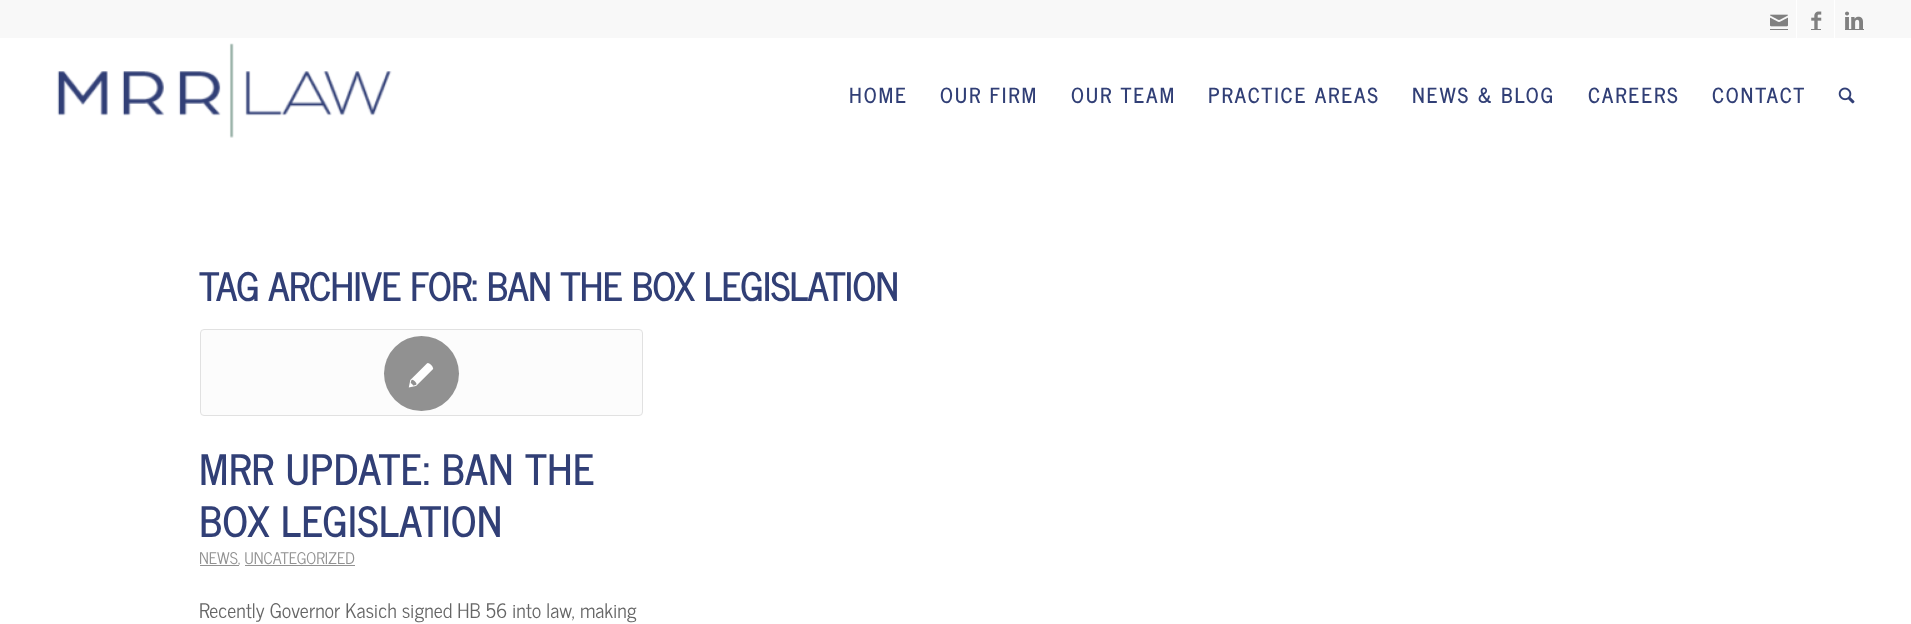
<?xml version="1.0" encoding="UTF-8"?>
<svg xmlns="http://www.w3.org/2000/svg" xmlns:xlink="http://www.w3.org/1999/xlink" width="1911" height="624">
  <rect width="100%" height="100%" fill="#ffffff" />
  <rect width="1911" height="38" fill="#f8f8f8" />
  <rect x="1796" width="1" height="38" fill="#ffffff" />
  <image x="1770" y="14" width="18" height="13" xlink:href="image1.png" />
  <rect x="1770" y="29" width="18" height="1" fill="#808080" />
  <rect x="1834" width="1" height="38" fill="#ffffff" />
  <image x="1811" y="11" width="11" height="18" xlink:href="image2.png" />
  <rect x="1811" y="29" width="10" height="1" fill="#808080" />
  <image x="1845" y="11" width="18" height="18" xlink:href="image3.png" />
  <rect x="1845" y="29" width="19" height="1" fill="#808080" />
  <image x="57" y="43" width="335" height="95" xlink:href="image4.png" />
  <image x="1838" y="87" width="17" height="17" xlink:href="image5.png" />
  <rect x="200.5" y="329.5" width="442" height="86" rx="3.5" fill="#fcfcfc" stroke="#e1e1e1" />
  <circle cx="421.5" cy="373.5" r="37.5" fill="#919191" />
  <image x="408" y="363" width="26" height="25" xlink:href="image6.png" />
  <rect x="200" y="565" width="39" height="1" fill="#919191" />
  <rect x="245" y="565" width="110" height="1" fill="#919191" />
  <text x="849" y="103" style="font-family: News Cycle; font-size: 20px; font-weight: bold; letter-spacing: 2.4px; fill: #313f76">HOME</text>
  <text x="940" y="103" style="font-family: News Cycle; font-size: 20px; font-weight: bold; letter-spacing: 2.4px; fill: #313f76">OUR FIRM</text>
  <text x="1071" y="103" style="font-family: News Cycle; font-size: 20px; font-weight: bold; letter-spacing: 2.4px; fill: #313f76">OUR TEAM</text>
  <text x="1208" y="103" style="font-family: News Cycle; font-size: 20px; font-weight: bold; letter-spacing: 2.4px; fill: #313f76">PRACTICE AREAS</text>
  <text x="1412" y="103" style="font-family: News Cycle; font-size: 20px; font-weight: bold; letter-spacing: 2.4px; fill: #313f76">NEWS &amp; BLOG</text>
  <text x="1588" y="103" style="font-family: News Cycle; font-size: 20px; font-weight: bold; letter-spacing: 2.4px; fill: #313f76">CAREERS</text>
  <text x="1712" y="103" style="font-family: News Cycle; font-size: 20px; font-weight: bold; letter-spacing: 2.4px; fill: #313f76">CONTACT</text>
  <text x="199" y="301" style="font-family: News Cycle; font-size: 37.5px; font-weight: bold; fill: #313f76">TAG ARCHIVE FOR: BAN THE BOX LEGISLATION</text>
  <text x="199" y="485" style="font-family: News Cycle; font-size: 40px; font-weight: bold; letter-spacing: 1.25px; fill: #313f76">MRR UPDATE: BAN THE</text>
  <text x="199" y="537" style="font-family: News Cycle; font-size: 40px; font-weight: bold; letter-spacing: 1.25px; fill: #313f76">BOX LEGISLATION</text>
  <text x="199" y="564" style="font-family: News Cycle; font-size: 16px; fill: #919191">NEWS, UNCATEGORIZED</text>
  <text x="199" y="618" style="font-family: News Cycle; font-size: 20px; fill: #666666">Recently Governor Kasich signed HB 56 into law, making</text>
</svg>
